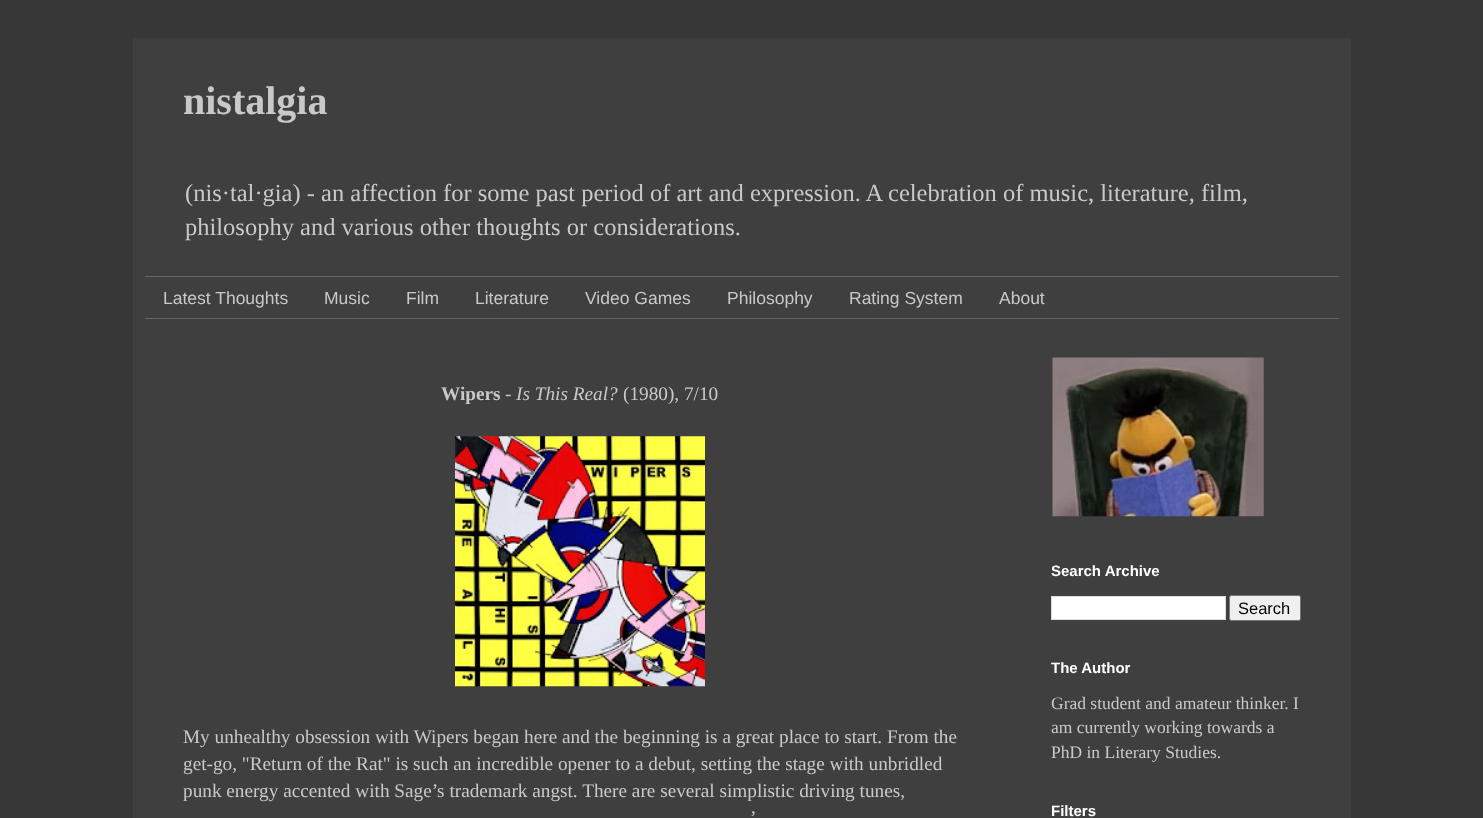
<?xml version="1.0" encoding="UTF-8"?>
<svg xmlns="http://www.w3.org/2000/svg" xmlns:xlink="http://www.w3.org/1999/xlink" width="1483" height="818">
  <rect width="100%" height="100%" fill="#373737" />
  <rect x="133" y="38" width="1218" height="780" fill="#3f3f3f" />
  <rect x="145" y="276" width="1194" height="1" fill="#656565" />
  <rect x="145" y="318" width="1194" height="1" fill="#656565" />
  <image x="455" y="436" width="250" height="251" xlink:href="image1.png" />
  <image x="1052" y="357" width="212" height="160" xlink:href="image2.png" />
  <rect x="1051.5" y="596.5" width="174" height="23" fill="#ffffff" stroke="#dddddd" />
  <rect x="1229.5" y="595.5" width="71" height="25" rx="2" fill="#efefef" stroke="#767676" />
  <text x="183" y="114" style="font-family: Liberation Serif; font-size: 40px; font-weight: bold; fill: #c9c9c9">nistalgia</text>
  <text x="185" y="201" style="font-family: Liberation Serif; font-size: 24.5px; fill: #c9c9c9">(nis·tal·gia) - an affection for some past period of art and expression. A celebration of music, literature, film,</text>
  <text x="185" y="235" style="font-family: Liberation Serif; font-size: 24.5px; fill: #c9c9c9">philosophy and various other thoughts or considerations.</text>
  <text x="163" y="304" style="font-family: Liberation Sans; font-size: 17.5px; fill: #c9c9c9">Latest Thoughts</text>
  <text x="324" y="304" style="font-family: Liberation Sans; font-size: 17.5px; fill: #c9c9c9">Music</text>
  <text x="406" y="304" style="font-family: Liberation Sans; font-size: 17.5px; fill: #c9c9c9">Film</text>
  <text x="475" y="304" style="font-family: Liberation Sans; font-size: 17.5px; fill: #c9c9c9">Literature</text>
  <text x="585" y="304" style="font-family: Liberation Sans; font-size: 17.5px; fill: #c9c9c9">Video Games</text>
  <text x="727" y="304" style="font-family: Liberation Sans; font-size: 17.5px; fill: #c9c9c9">Philosophy</text>
  <text x="849" y="304" style="font-family: Liberation Sans; font-size: 17.5px; fill: #c9c9c9">Rating System</text>
  <text x="999" y="304" style="font-family: Liberation Sans; font-size: 17.5px; fill: #c9c9c9">About</text>
  <text x="441" y="400" style="font-family: Liberation Serif; font-size: 19.25px; font-weight: bold; fill: #c9c9c9">Wipers</text>
  <text x="505" y="400" style="font-family: Liberation Serif; font-size: 19.25px; fill: #c9c9c9">-</text>
  <text x="516" y="400" style="font-family: Liberation Serif; font-size: 19.25px; font-style: italic; fill: #c9c9c9">Is This Real?</text>
  <text x="623" y="400" style="font-family: Liberation Serif; font-size: 19.25px; fill: #c9c9c9">(1980), 7/10</text>
  <text x="183" y="743" style="font-family: Liberation Serif; font-size: 19.25px; fill: #c9c9c9">My unhealthy obsession with Wipers began here and the beginning is a great place to start. From the</text>
  <text x="183" y="770" style="font-family: Liberation Serif; font-size: 19.25px; fill: #c9c9c9">get-go, "Return of the Rat" is such an incredible opener to a debut, setting the stage with unbridled</text>
  <text x="183" y="797" style="font-family: Liberation Serif; font-size: 19.25px; fill: #c9c9c9">punk energy accented with Sage’s trademark angst. There are several simplistic driving tunes,</text>
  <text x="750" y="824" style="font-family: Liberation Serif; font-size: 19.25px; fill: #c9c9c9">’</text>
  <text x="1051" y="576" style="font-family: Liberation Sans; font-size: 15px; font-weight: bold; fill: #ffffff">Search Archive</text>
  <text x="1238" y="614" style="font-family: Liberation Sans; font-size: 16.5px; fill: #000000">Search</text>
  <text x="1051" y="673" style="font-family: Liberation Sans; font-size: 15px; font-weight: bold; fill: #ffffff">The Author</text>
  <text x="1051" y="709" style="font-family: Liberation Serif; font-size: 17.5px; fill: #c9c9c9">Grad student and amateur thinker. I</text>
  <text x="1051" y="733" style="font-family: Liberation Serif; font-size: 17.5px; fill: #c9c9c9">am currently working towards a</text>
  <text x="1051" y="758" style="font-family: Liberation Serif; font-size: 17.5px; fill: #c9c9c9">PhD in Literary Studies.</text>
  <text x="1051" y="816" style="font-family: Liberation Sans; font-size: 15px; font-weight: bold; fill: #ffffff">Filters</text>
</svg>
